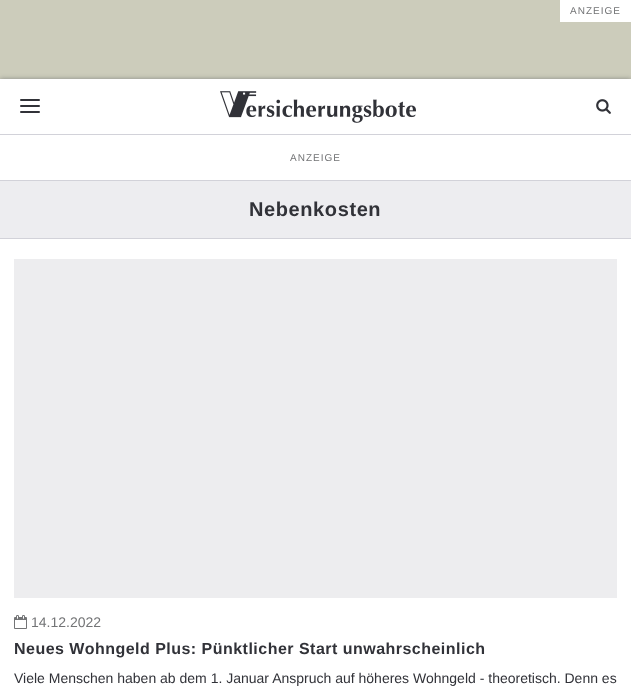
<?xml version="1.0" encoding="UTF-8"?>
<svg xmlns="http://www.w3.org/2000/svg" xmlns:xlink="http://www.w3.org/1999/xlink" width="631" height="691">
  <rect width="100%" height="100%" fill="#ccccbb" />
  <rect x="560" width="71" height="22" fill="#ffffff" />
  <rect y="79" width="631" height="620" fill="#41464d" fill-opacity="0.5" filter="blur(2.5px)" />
  <rect y="79" width="631" height="612" fill="#ffffff" />
  <rect y="134" width="631" height="1" fill="#d2d2d9" />
  <rect x="20" y="105" width="20" height="2" rx="1" fill="#313238" />
  <rect x="20" y="99" width="20" height="2" rx="1" fill="#313238" />
  <rect x="20" y="111" width="20" height="2" rx="1" fill="#313238" />
  <image x="220" y="91" width="196" height="32" xlink:href="image1.png" />
  <image x="596" y="99" width="15" height="15" xlink:href="image2.png" />
  <rect y="181" width="631" height="57" fill="#ededf0" />
  <rect y="180" width="631" height="1" fill="#d2d2d9" />
  <rect y="238" width="631" height="1" fill="#d2d2d9" />
  <rect x="14" y="259" width="603" height="339" fill="#ededef" />
  <image x="14" y="615" width="13" height="14" xlink:href="image3.png" />
  <text x="570" y="14" style="font-family: Liberation Sans; font-size: 10px; letter-spacing: 1px; fill: #737476">ANZEIGE</text>
  <text x="290" y="161" style="font-family: Liberation Sans; font-size: 10px; letter-spacing: 1px; fill: #737476">ANZEIGE</text>
  <text x="249" y="216" style="font-family: Liberation Sans; font-size: 20px; font-weight: bold; letter-spacing: 0.6px; fill: #313238">Nebenkosten</text>
  <text x="31" y="627" style="font-family: Liberation Sans; font-size: 14px; fill: #737476">14.12.2022</text>
  <text x="14" y="654" style="font-family: Liberation Sans; font-size: 16px; font-weight: bold; letter-spacing: 0.48px; fill: #313238">Neues Wohngeld Plus: Pünktlicher Start unwahrscheinlich</text>
  <text x="14" y="683" style="font-family: Liberation Sans; font-size: 14px; fill: #313238">Viele Menschen haben ab dem 1. Januar Anspruch auf höheres Wohngeld - theoretisch. Denn es</text>
</svg>
